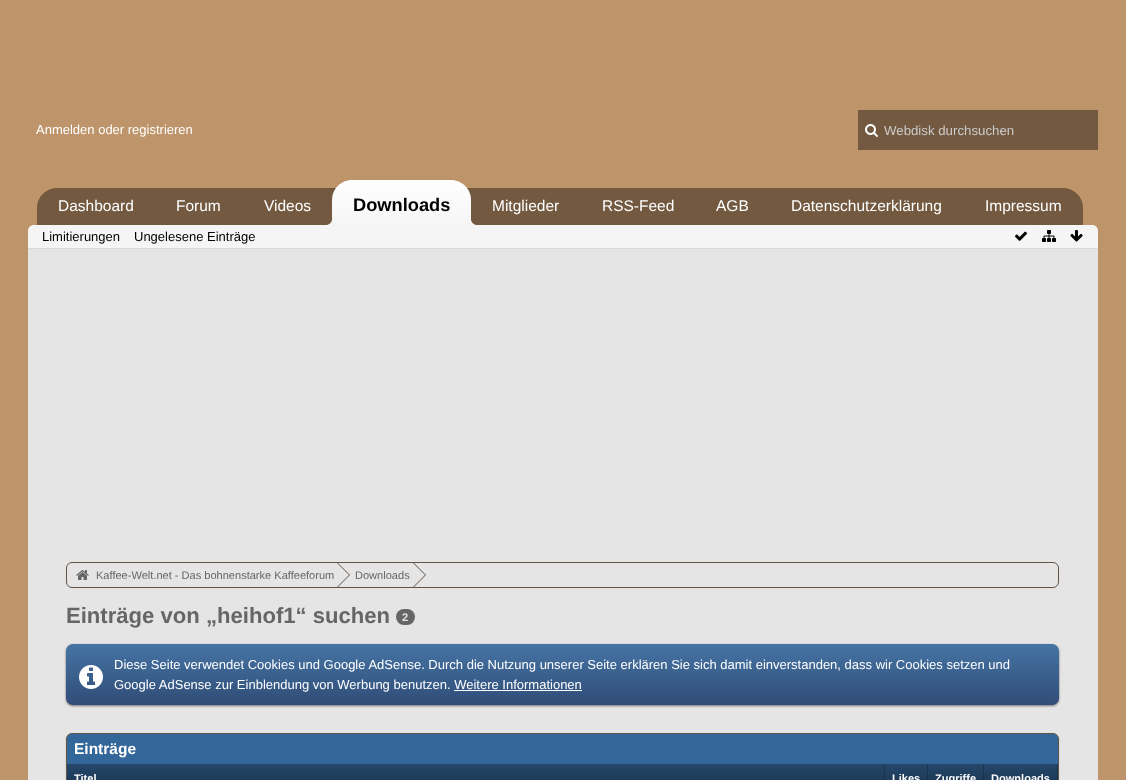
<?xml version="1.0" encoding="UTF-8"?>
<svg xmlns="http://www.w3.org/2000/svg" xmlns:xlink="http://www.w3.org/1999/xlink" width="1126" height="780">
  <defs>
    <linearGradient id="g1" gradientUnits="userSpaceOnUse" x1="402" y1="180" x2="402" y2="225"><stop offset="0" stop-color="#ffffff" /><stop offset="1" stop-color="#f5f5f5" /></linearGradient>
    <linearGradient id="g2" gradientUnits="userSpaceOnUse" x1="563" y1="644" x2="563" y2="705"><stop offset="0" stop-color="#4674a4" /><stop offset="1" stop-color="#304d77" /></linearGradient>
    <linearGradient id="g3" gradientUnits="userSpaceOnUse" x1="476" y1="764" x2="476" y2="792"><stop offset="0" stop-color="#24476b" /><stop offset="1" stop-color="#19324b" /></linearGradient>
    <linearGradient id="g4" gradientUnits="userSpaceOnUse" x1="476" y1="764" x2="476" y2="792"><stop offset="0" stop-color="#1d3956" /><stop offset="1" stop-color="#14283c" /></linearGradient>
    <linearGradient id="g5" gradientUnits="userSpaceOnUse" x1="906" y1="764" x2="906" y2="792"><stop offset="0" stop-color="#24476b" /><stop offset="1" stop-color="#19324b" /></linearGradient>
    <linearGradient id="g6" gradientUnits="userSpaceOnUse" x1="906" y1="764" x2="906" y2="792"><stop offset="0" stop-color="#1d3956" /><stop offset="1" stop-color="#14283c" /></linearGradient>
    <linearGradient id="g7" gradientUnits="userSpaceOnUse" x1="956" y1="764" x2="956" y2="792"><stop offset="0" stop-color="#24476b" /><stop offset="1" stop-color="#19324b" /></linearGradient>
    <linearGradient id="g8" gradientUnits="userSpaceOnUse" x1="956" y1="764" x2="956" y2="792"><stop offset="0" stop-color="#1d3956" /><stop offset="1" stop-color="#14283c" /></linearGradient>
    <linearGradient id="g9" gradientUnits="userSpaceOnUse" x1="1021" y1="764" x2="1021" y2="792"><stop offset="0" stop-color="#24476b" /><stop offset="1" stop-color="#19324b" /></linearGradient>
    <linearGradient id="g10" gradientUnits="userSpaceOnUse" x1="1021" y1="764" x2="1021" y2="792"><stop offset="0" stop-color="#1d3956" /><stop offset="1" stop-color="#14283c" /></linearGradient>
  </defs>
  <rect width="100%" height="100%" fill="#be946a" />
  <rect x="858" y="110" width="240" height="40" fill="#725940" />
  <image x="865" y="124" width="13" height="13" xlink:href="image1.png" />
  <path d="M 57 188 h 1006 c 11 0 20 9 20 20 v 17 h -1046 v -17 c 0 -11 9 -20 20 -20 z" fill="#725940" />
  <path d="M 352 180 h 99 c 11 0 20 9 20 20 v 25 h -139 v -25 c 0 -11 9 -20 20 -20 z" fill="url(#g1)" />
  <path d="M 34 225 h 1058 c 3.5 0 6 2.5 6 6 v 18 h -1070 v -18 c 0 -3.5 2.5 -6 6 -6 z" fill="#f5f5f5" />
  <path d="M 327 225 v 2 c 4.5 0 7 -2.5 7 -7 h -2 c -0.5 2.5 -2.5 4.5 -5 5 z" fill="#f5f5f5" />
  <path d="M 469 220 c 0 4.5 2.5 7 7 7 v -2 c -2.5 -0.5 -4.5 -2.5 -5 -5 z" fill="#f5f5f5" />
  <rect x="28" y="248" width="1070" height="1" fill="#d9d9d9" />
  <image x="1015" y="231" width="12" height="10" xlink:href="image2.png" />
  <image x="1042" y="230" width="14" height="12" xlink:href="image3.png" />
  <image x="1070" y="230" width="13" height="12" xlink:href="image4.png" />
  <rect x="28" y="249" width="1070" height="531" fill="#e5e5e5" />
  <rect x="66.5" y="562.5" width="992" height="25" rx="5.5" fill="none" stroke="#625548" />
  <image x="76" y="570" width="13" height="10" xlink:href="image5.png" />
  <path d="M 338 563 l 12 12 l -12 12 h -3 v -24 z" fill="#625548" />
  <path d="M 337 563 l 12 12 l -12 12 h -3 v -24 z" fill="#e5e5e5" />
  <path d="M 414 563 l 12 12 l -12 12 h -3 v -24 z" fill="#625548" />
  <path d="M 413 563 l 12 12 l -12 12 h -3 v -24 z" fill="#e5e5e5" />
  <rect x="396" y="609" width="19" height="16" rx="8" fill="#666666" />
  <rect x="66" y="645" width="993" height="61" rx="7" fill="#000000" fill-opacity="0.5" filter="blur(1px)" />
  <rect x="66" y="644" width="993" height="61" rx="7" fill="url(#g2)" />
  <image x="79" y="665" width="24" height="24" xlink:href="image6.png" />
  <rect x="454" y="690" width="128" height="1" fill="#ffffff" />
  <rect x="66" y="734" width="993" height="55" rx="6" fill="#000000" fill-opacity="0.1" filter="blur(1px)" />
  <rect x="66.5" y="733.5" width="992" height="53" rx="5.5" fill="#336699" stroke="#625548" />
  <rect x="67" y="764" width="817" height="16" fill="url(#g3)" />
  <rect x="884" y="764" width="1" height="16" fill="url(#g4)" />
  <rect x="885" y="764" width="42" height="16" fill="url(#g5)" />
  <rect x="927" y="764" width="1" height="16" fill="url(#g6)" />
  <rect x="928" y="764" width="55" height="16" fill="url(#g7)" />
  <rect x="983" y="764" width="1" height="16" fill="url(#g8)" />
  <rect x="984" y="764" width="73" height="16" fill="url(#g9)" />
  <rect x="1057" y="764" width="1" height="16" fill="url(#g10)" />
  <text x="36" y="134" style="font-family: Liberation Sans; font-size: 13px; fill: #ffffff">Anmelden oder registrieren</text>
  <text x="884" y="135" style="font-family: Liberation Sans; font-size: 13.25px; fill: #cccccc">Webdisk durchsuchen</text>
  <text x="58" y="211" style="font-family: Liberation Sans; font-size: 15.5px; fill: #ffffff">Dashboard</text>
  <text x="176" y="211" style="font-family: Liberation Sans; font-size: 15.5px; fill: #ffffff">Forum</text>
  <text x="264" y="211" style="font-family: Liberation Sans; font-size: 15.5px; fill: #ffffff">Videos</text>
  <text x="353" y="211" style="font-family: Liberation Sans; font-size: 18.25px; font-weight: bold; fill: #000000">Downloads</text>
  <text x="492" y="211" style="font-family: Liberation Sans; font-size: 15.5px; fill: #ffffff">Mitglieder</text>
  <text x="602" y="211" style="font-family: Liberation Sans; font-size: 15.5px; fill: #ffffff">RSS-Feed</text>
  <text x="716" y="211" style="font-family: Liberation Sans; font-size: 15.5px; fill: #ffffff">AGB</text>
  <text x="791" y="211" style="font-family: Liberation Sans; font-size: 15.5px; fill: #ffffff">Datenschutzerklärung</text>
  <text x="985" y="211" style="font-family: Liberation Sans; font-size: 15.5px; fill: #ffffff">Impressum</text>
  <text x="42" y="241" style="font-family: Liberation Sans; font-size: 13px; fill: #000000">Limitierungen</text>
  <text x="134" y="241" style="font-family: Liberation Sans; font-size: 13px; fill: #000000">Ungelesene Einträge</text>
  <text x="96" y="579" style="font-family: Liberation Sans; font-size: 11.05px; fill: #666666">Kaffee-Welt.net - Das bohnenstarke Kaffeeforum</text>
  <text x="355" y="579" style="font-family: Liberation Sans; font-size: 11.05px; fill: #666666">Downloads</text>
  <text x="66" y="623" style="font-family: Liberation Sans; font-size: 22.1px; font-weight: bold; fill: #666666">Einträge von „heihof1“ suchen</text>
  <text x="402" y="621" style="font-family: Liberation Sans; font-size: 11.05px; font-weight: bold; fill: #e5e5e5">2</text>
  <text x="114" y="669" style="font-family: Liberation Sans; font-size: 13px; fill: #ffffff">Diese Seite verwendet Cookies und Google AdSense. Durch die Nutzung unserer Seite erklären Sie sich damit einverstanden, dass wir Cookies setzen und</text>
  <text x="114" y="689" style="font-family: Liberation Sans; font-size: 13px; fill: #ffffff">Google AdSense zur Einblendung von Werbung benutzen. Weitere Informationen</text>
  <text x="74" y="754" style="font-family: Liberation Sans; font-size: 15.5px; font-weight: bold; fill: #ffffff">Einträge</text>
  <text x="74" y="782" style="font-family: Liberation Sans; font-size: 11.05px; font-weight: bold; fill: #ffffff">Titel</text>
  <text x="892" y="782" style="font-family: Liberation Sans; font-size: 11.05px; font-weight: bold; fill: #ffffff">Likes</text>
  <text x="935" y="782" style="font-family: Liberation Sans; font-size: 11.05px; font-weight: bold; fill: #ffffff">Zugriffe</text>
  <text x="991" y="782" style="font-family: Liberation Sans; font-size: 11.05px; font-weight: bold; fill: #ffffff">Downloads</text>
</svg>
